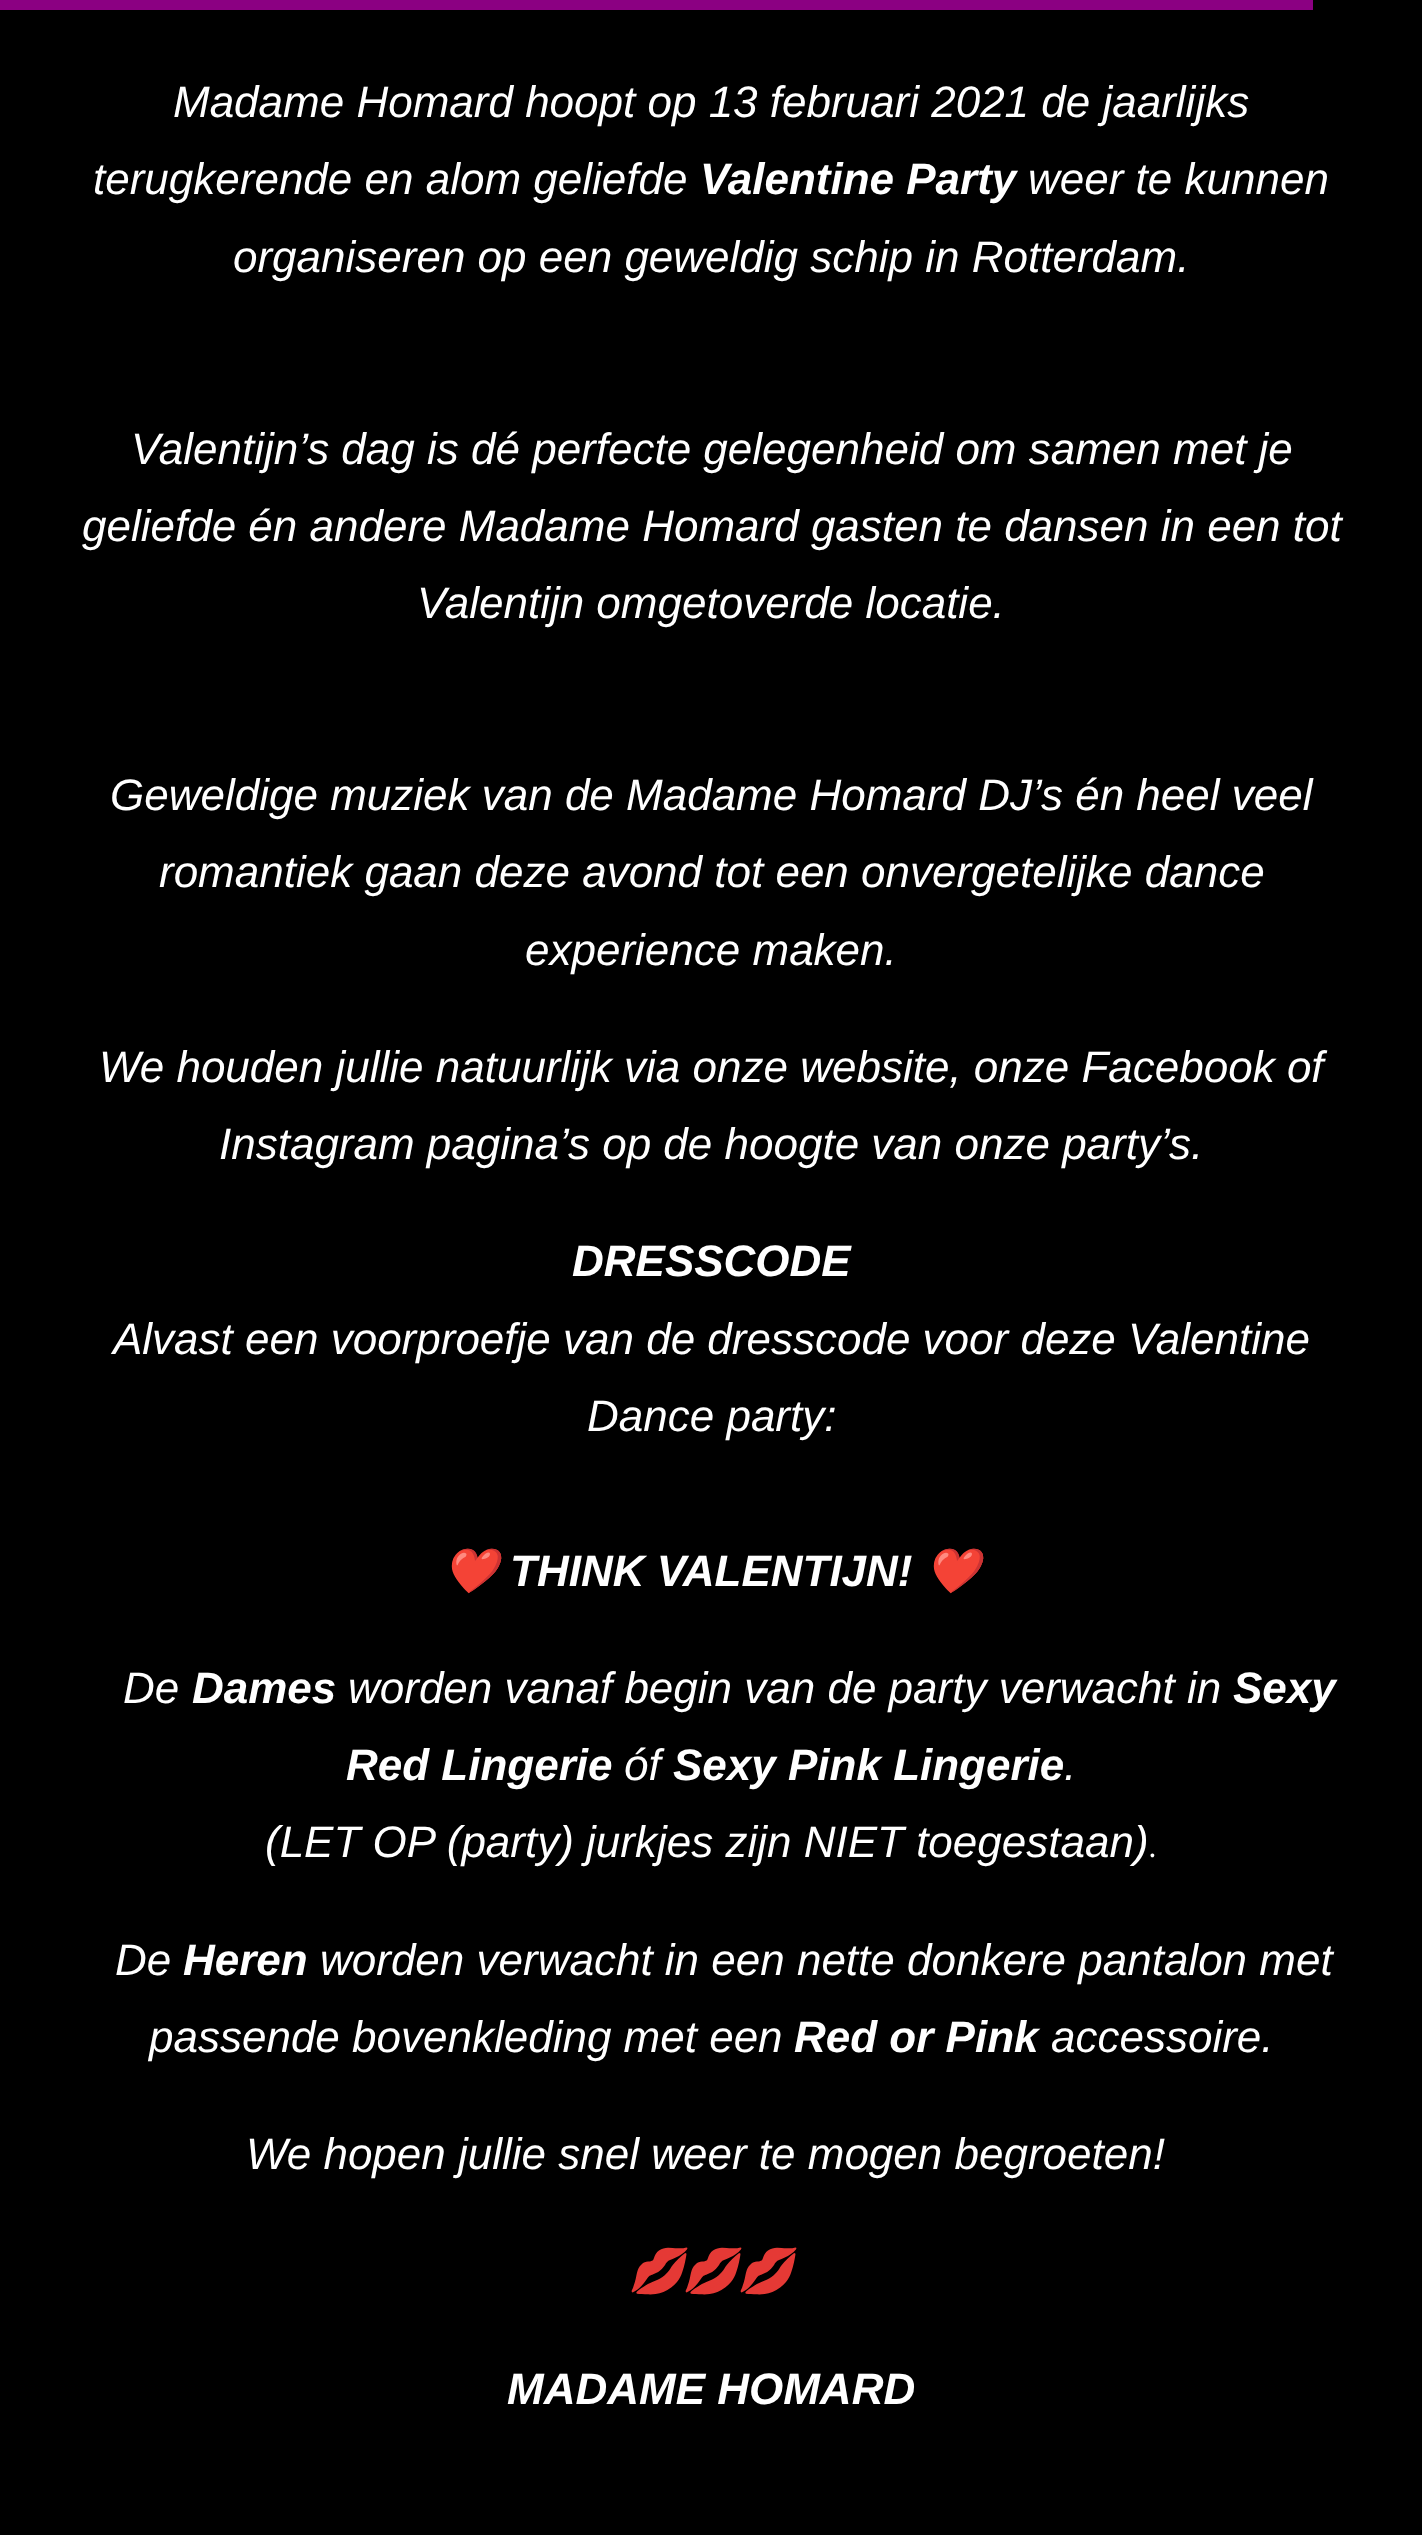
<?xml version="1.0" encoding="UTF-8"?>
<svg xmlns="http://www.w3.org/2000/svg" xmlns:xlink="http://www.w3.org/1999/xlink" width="1422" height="2535">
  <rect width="100%" height="100%" fill="#000000" />
  <rect width="1313" height="10" fill="#8b0082" />
  <text x="173" y="117" style="font-family: Liberation Sans; font-size: 44px; font-style: italic; fill: #ffffff">Madame Homard hoopt op 13 februari 2021 de jaarlijks</text>
  <text x="93" y="194" style="font-family: Liberation Sans; font-size: 44px; font-style: italic; fill: #ffffff">terugkerende en alom geliefde</text>
  <text x="700" y="194" style="font-family: Liberation Sans; font-size: 44px; font-weight: bold; font-style: italic; fill: #ffffff">Valentine Party</text>
  <text x="1028" y="194" style="font-family: Liberation Sans; font-size: 44px; font-style: italic; fill: #ffffff">weer te kunnen</text>
  <text x="233" y="272" style="font-family: Liberation Sans; font-size: 44px; font-style: italic; fill: #ffffff">organiseren op een geweldig schip in Rotterdam.</text>
  <text x="131" y="464" style="font-family: Liberation Sans; font-size: 44px; font-style: italic; fill: #ffffff">Valentijn’s dag is dé perfecte gelegenheid om samen met je</text>
  <text x="82" y="541" style="font-family: Liberation Sans; font-size: 44px; font-style: italic; fill: #ffffff">geliefde én andere Madame Homard gasten te dansen in een tot</text>
  <text x="417" y="618" style="font-family: Liberation Sans; font-size: 44px; font-style: italic; fill: #ffffff">Valentijn omgetoverde locatie.</text>
  <text x="110" y="810" style="font-family: Liberation Sans; font-size: 44px; font-style: italic; fill: #ffffff">Geweldige muziek van de Madame Homard DJ’s én heel veel</text>
  <text x="159" y="887" style="font-family: Liberation Sans; font-size: 44px; font-style: italic; fill: #ffffff">romantiek gaan deze avond tot een onvergetelijke dance</text>
  <text x="525" y="965" style="font-family: Liberation Sans; font-size: 44px; font-style: italic; fill: #ffffff">experience maken.</text>
  <text x="99" y="1082" style="font-family: Liberation Sans; font-size: 44px; font-style: italic; fill: #ffffff">We houden jullie natuurlijk via onze website, onze Facebook of</text>
  <text x="219" y="1159" style="font-family: Liberation Sans; font-size: 44px; font-style: italic; fill: #ffffff">Instagram pagina’s op de hoogte van onze party’s.</text>
  <text x="572" y="1276" style="font-family: Liberation Sans; font-size: 44px; font-weight: bold; font-style: italic; fill: #ffffff">DRESSCODE</text>
  <text x="113" y="1354" style="font-family: Liberation Sans; font-size: 44px; font-style: italic; fill: #ffffff">Alvast een voorproefje van de dresscode voor deze Valentine</text>
  <text x="587" y="1431" style="font-family: Liberation Sans; font-size: 44px; font-style: italic; fill: #ffffff">Dance party:</text>
  <text x="443" y="1586" style="font-family: Noto Color Emoji; font-size: 44px; font-weight: bold; font-style: italic; fill: #ffffff">❤️</text>
  <text x="510" y="1586" style="font-family: Liberation Sans; font-size: 44px; font-weight: bold; font-style: italic; fill: #ffffff">THINK VALENTIJN!</text>
  <text x="925" y="1586" style="font-family: Noto Color Emoji; font-size: 44px; font-weight: bold; font-style: italic; fill: #ffffff">❤️</text>
  <text x="123" y="1703" style="font-family: Liberation Sans; font-size: 44px; font-style: italic; fill: #ffffff">De</text>
  <text x="192" y="1703" style="font-family: Liberation Sans; font-size: 44px; font-weight: bold; font-style: italic; fill: #ffffff">Dames</text>
  <text x="348" y="1703" style="font-family: Liberation Sans; font-size: 44px; font-style: italic; fill: #ffffff">worden vanaf begin van de party verwacht in</text>
  <text x="1233" y="1703" style="font-family: Liberation Sans; font-size: 44px; font-weight: bold; font-style: italic; fill: #ffffff">Sexy</text>
  <text x="346" y="1780" style="font-family: Liberation Sans; font-size: 44px; font-weight: bold; font-style: italic; fill: #ffffff">Red Lingerie</text>
  <text x="624" y="1780" style="font-family: Liberation Sans; font-size: 44px; font-style: italic; fill: #ffffff">óf</text>
  <text x="673" y="1780" style="font-family: Liberation Sans; font-size: 44px; font-weight: bold; font-style: italic; fill: #ffffff">Sexy Pink Lingerie</text>
  <text x="1064" y="1780" style="font-family: Liberation Sans; font-size: 44px; font-style: italic; fill: #ffffff">.</text>
  <text x="265" y="1857" style="font-family: Liberation Sans; font-size: 44px; font-style: italic; fill: #ffffff">(LET OP (party) jurkjes zijn NIET toegestaan)</text>
  <text x="1148" y="1857" style="font-family: Montserrat; font-size: 44px; font-weight: 300; fill: #ffffff">.</text>
  <text x="115" y="1975" style="font-family: Liberation Sans; font-size: 44px; font-style: italic; fill: #ffffff">De</text>
  <text x="183" y="1975" style="font-family: Liberation Sans; font-size: 44px; font-weight: bold; font-style: italic; fill: #ffffff">Heren</text>
  <text x="320" y="1975" style="font-family: Liberation Sans; font-size: 44px; font-style: italic; fill: #ffffff">worden verwacht in een nette donkere pantalon met</text>
  <text x="149" y="2052" style="font-family: Liberation Sans; font-size: 44px; font-style: italic; fill: #ffffff">passende bovenkleding met een</text>
  <text x="794" y="2052" style="font-family: Liberation Sans; font-size: 44px; font-weight: bold; font-style: italic; fill: #ffffff">Red or Pink</text>
  <text x="1051" y="2052" style="font-family: Liberation Sans; font-size: 44px; font-style: italic; fill: #ffffff">accessoire.</text>
  <text x="246" y="2169" style="font-family: Liberation Sans; font-size: 44px; font-style: italic; fill: #ffffff">We hopen jullie snel weer te mogen begroeten!</text>
  <text x="629" y="2286" style="font-family: Noto Color Emoji; font-size: 44px; font-weight: bold; font-style: italic; fill: #ffffff">💋💋💋</text>
  <text x="507" y="2404" style="font-family: Liberation Sans; font-size: 44px; font-weight: bold; font-style: italic; fill: #ffffff">MADAME HOMARD</text>
</svg>
